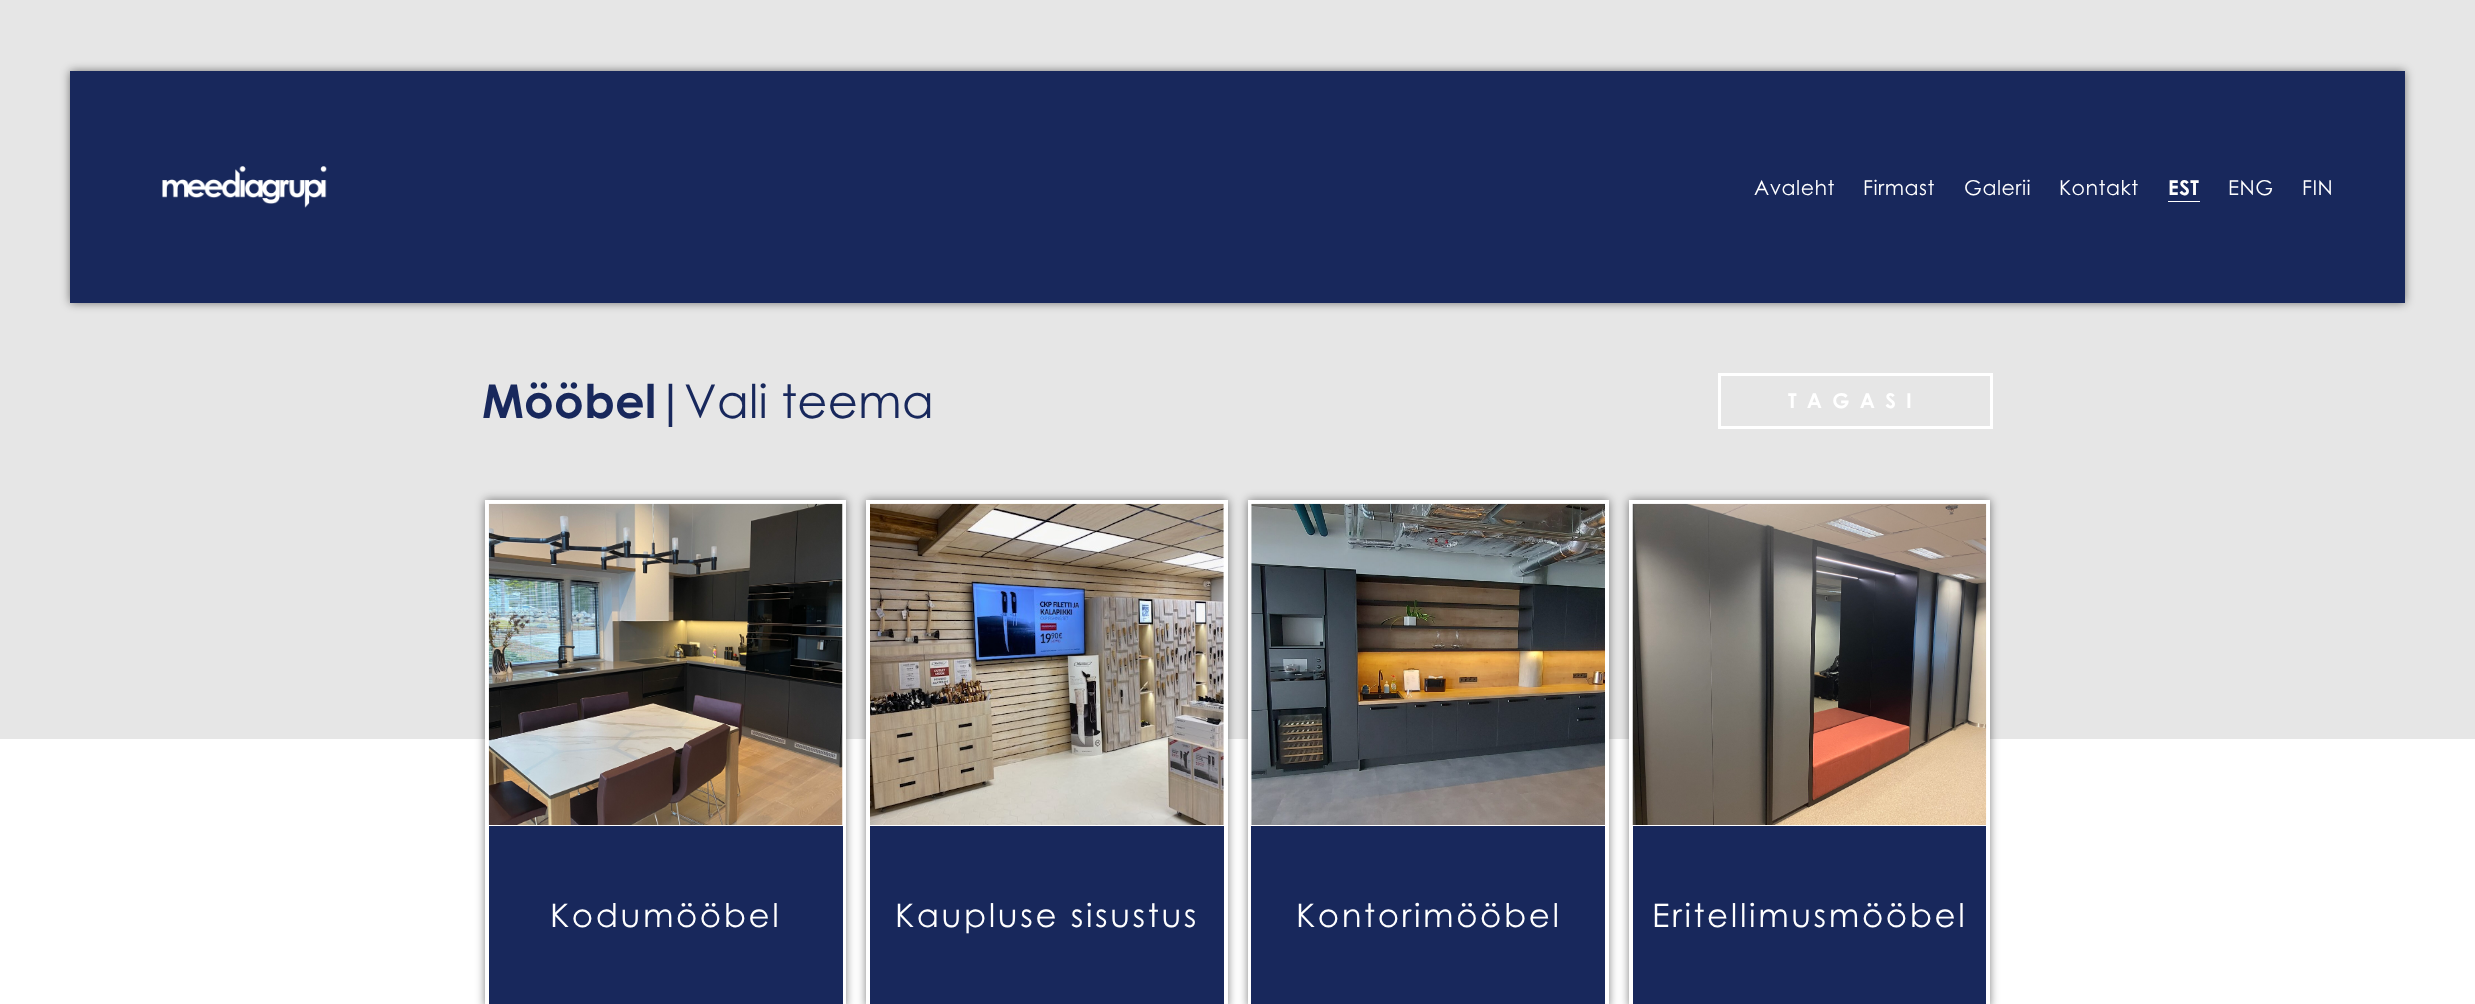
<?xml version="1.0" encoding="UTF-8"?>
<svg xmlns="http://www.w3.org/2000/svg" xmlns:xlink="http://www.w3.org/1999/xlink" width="2475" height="1004">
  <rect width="100%" height="100%" fill="#ffffff" />
  <rect width="2475" height="739" fill="#e6e6e6" />
  <rect x="70" y="71" width="2335" height="232" fill="#000000" fill-opacity="0.5" filter="blur(5px)" />
  <rect x="70" y="71" width="2335" height="232" fill="#18285c" />
  <image x="162" y="166" width="165" height="42" xlink:href="image1.png" />
  <rect x="2168" y="201" width="32" height="1" fill="#ffffff" />
  <rect x="1719.5" y="374.5" width="272" height="53" fill="none" stroke="#ffffff" stroke-width="3" />
  <rect x="485" y="500" width="361" height="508" fill="#000000" fill-opacity="0.5" filter="blur(5px)" />
  <rect x="485" y="500" width="361" height="504" fill="#ffffff" />
  <image x="488" y="503" width="355" height="322" xlink:href="image2.png" />
  <rect x="489" y="826" width="354" height="178" fill="#18285c" />
  <rect x="866" y="500" width="362" height="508" fill="#000000" fill-opacity="0.5" filter="blur(5px)" />
  <rect x="866" y="500" width="362" height="504" fill="#ffffff" />
  <image x="870" y="503" width="354" height="322" xlink:href="image3.png" />
  <rect x="870" y="826" width="354" height="178" fill="#18285c" />
  <rect x="1248" y="500" width="361" height="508" fill="#000000" fill-opacity="0.5" filter="blur(5px)" />
  <rect x="1248" y="500" width="361" height="504" fill="#ffffff" />
  <image x="1251" y="503" width="354" height="322" xlink:href="image4.png" />
  <rect x="1251" y="826" width="354" height="178" fill="#18285c" />
  <rect x="1629" y="500" width="361" height="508" fill="#000000" fill-opacity="0.5" filter="blur(5px)" />
  <rect x="1629" y="500" width="361" height="504" fill="#ffffff" />
  <image x="1632" y="503" width="355" height="322" xlink:href="image5.png" />
  <rect x="1633" y="826" width="353" height="178" fill="#18285c" />
  <text x="1754" y="195" style="font-family: Century Gothic; font-size: 20.5px; letter-spacing: 0.5px; fill: #ffffff">Avaleht</text>
  <text x="1863" y="195" style="font-family: Century Gothic; font-size: 20.5px; letter-spacing: 0.5px; fill: #ffffff">Firmast</text>
  <text x="1964" y="195" style="font-family: Century Gothic; font-size: 20.5px; letter-spacing: 0.5px; fill: #ffffff">Galerii</text>
  <text x="2059" y="195" style="font-family: Century Gothic; font-size: 20.5px; letter-spacing: 0.5px; fill: #ffffff">Kontakt</text>
  <text x="2168" y="195" style="font-family: Century Gothic; font-size: 20.5px; font-weight: bold; letter-spacing: 0.5px; fill: #ffffff">EST</text>
  <text x="2228" y="195" style="font-family: Century Gothic; font-size: 20.5px; letter-spacing: 0.5px; fill: #ffffff">ENG</text>
  <text x="2302" y="195" style="font-family: Century Gothic; font-size: 20.5px; letter-spacing: 0.5px; fill: #ffffff">FIN</text>
  <text x="482" y="418" style="font-family: Century Gothic; font-size: 46.5px; font-weight: bold; letter-spacing: 0.25px; fill: #18285c">Mööbel|</text>
  <text x="684" y="418" style="font-family: Century Gothic; font-size: 46.5px; letter-spacing: 0.25px; fill: #18285c">Vali teema</text>
  <text x="1788" y="408" style="font-family: Century Gothic; font-size: 20.5px; font-weight: bold; letter-spacing: 10.25px; fill: #ffffff">TAGASI</text>
  <text x="550" y="927" style="font-family: Century Gothic; font-size: 32.5px; letter-spacing: 2.6px; fill: #ffffff">Kodumööbel</text>
  <text x="895" y="927" style="font-family: Century Gothic; font-size: 32.5px; letter-spacing: 2.6px; fill: #ffffff">Kaupluse sisustus</text>
  <text x="1296" y="927" style="font-family: Century Gothic; font-size: 32.5px; letter-spacing: 2.6px; fill: #ffffff">Kontorimööbel</text>
  <text x="1652" y="927" style="font-family: Century Gothic; font-size: 32.5px; letter-spacing: 2.6px; fill: #ffffff">Eritellimusmööbel</text>
</svg>
